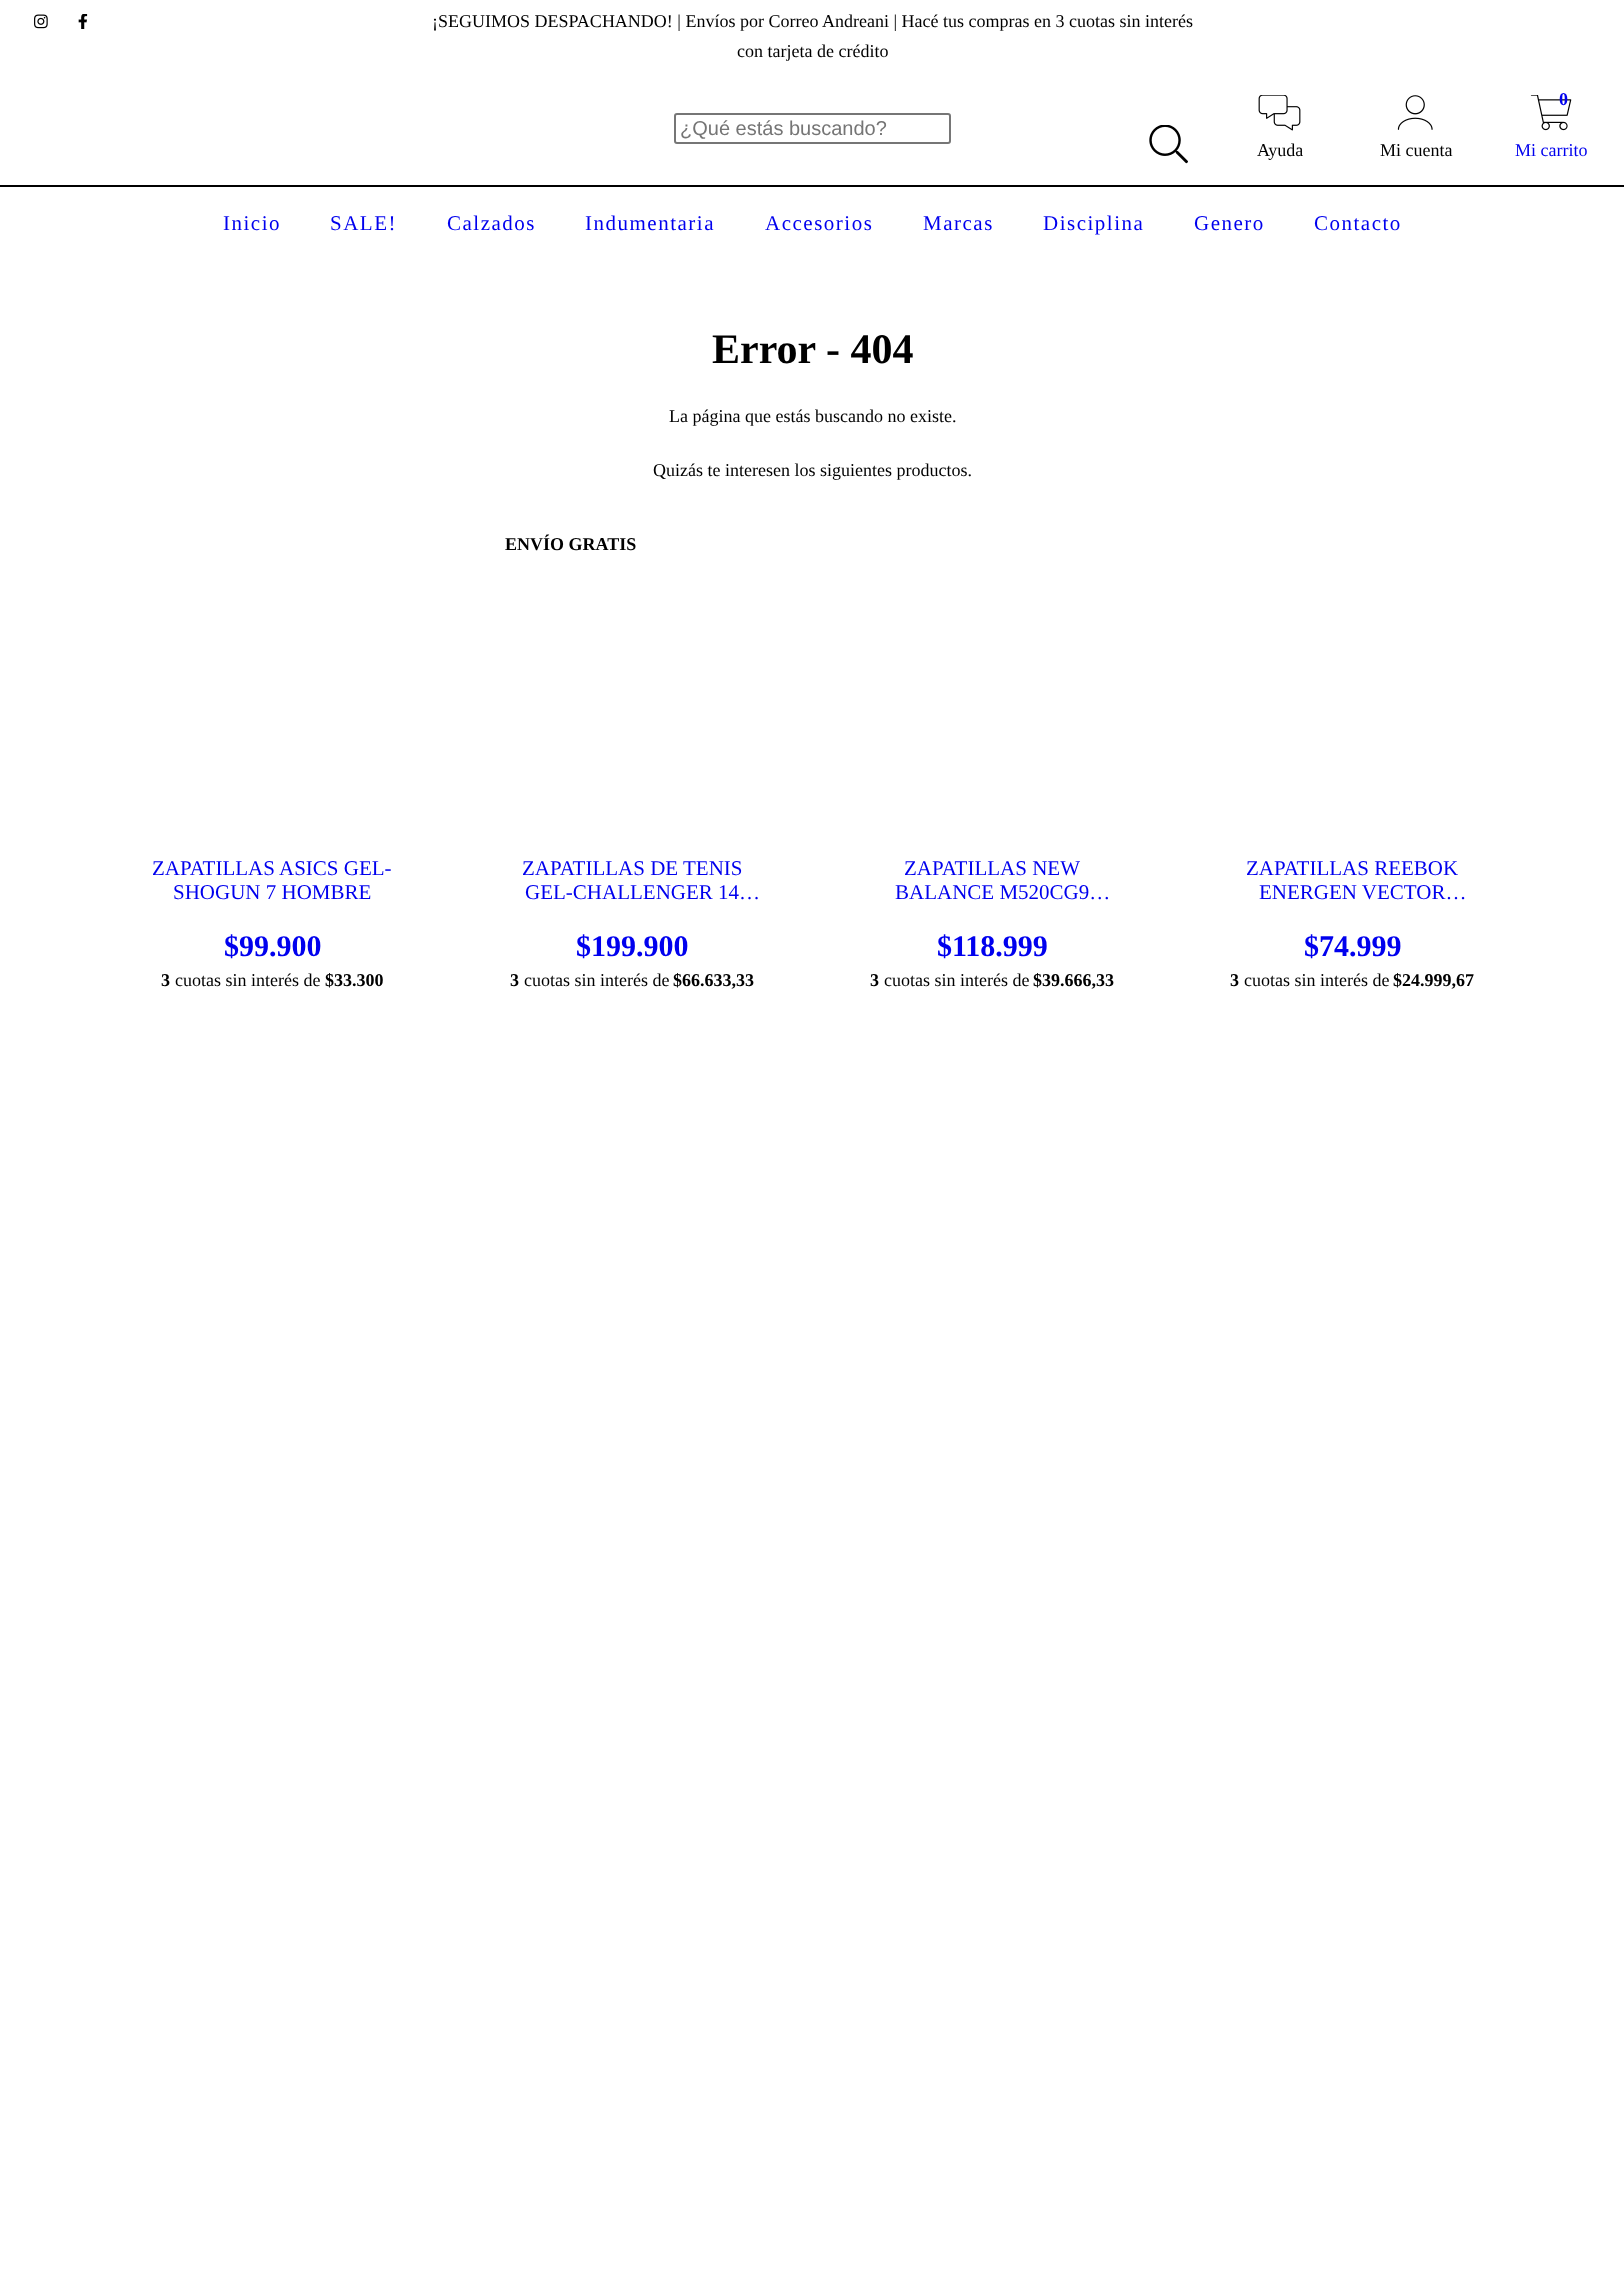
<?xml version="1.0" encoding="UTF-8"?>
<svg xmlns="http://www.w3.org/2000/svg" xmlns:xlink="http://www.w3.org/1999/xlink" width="1624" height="2275">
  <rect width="100%" height="100%" fill="#ffffff" />
  <image x="34" y="14" width="14" height="15" xlink:href="image1.png" />
  <image x="78" y="14" width="10" height="15" xlink:href="image2.png" />
  <rect x="675" y="114" width="275" height="29" rx="2" fill="none" stroke="#767676" stroke-width="2" />
  <image x="1149" y="125" width="39" height="39" xlink:href="image3.png" />
  <image x="1258" y="95" width="43" height="36" xlink:href="image4.png" />
  <image x="1397" y="95" width="36" height="35" xlink:href="image5.png" />
  <image x="1530" y="95" width="42" height="36" xlink:href="image6.png" />
  <rect y="185" width="1624" height="2" fill="#000000" />
  <text x="432" y="27" style="font-family: Liberation Serif; font-size: 18px; fill: #000000">¡SEGUIMOS DESPACHANDO! | Envíos por Correo Andreani | Hacé tus compras en 3 cuotas sin interés</text>
  <text x="737" y="57" style="font-family: Liberation Serif; font-size: 18px; fill: #000000">con tarjeta de crédito</text>
  <text x="680" y="135" style="font-family: Liberation Sans; font-size: 20px; fill: #757575">¿Qué estás buscando?</text>
  <text x="1257" y="156" style="font-family: Liberation Serif; font-size: 18px; fill: #000000">Ayuda</text>
  <text x="1380" y="156" style="font-family: Liberation Serif; font-size: 18px; fill: #000000">Mi cuenta</text>
  <text x="1559" y="105" style="font-family: Liberation Serif; font-size: 18px; font-weight: bold; fill: #0000ee">0</text>
  <text x="1515" y="156" style="font-family: Liberation Serif; font-size: 18px; fill: #0000ee">Mi carrito</text>
  <text x="223" y="230" style="font-family: Liberation Serif; font-size: 21px; letter-spacing: 1.5px; fill: #0000ee">Inicio</text>
  <text x="330" y="230" style="font-family: Liberation Serif; font-size: 21px; letter-spacing: 1.5px; fill: #0000ee">SALE!</text>
  <text x="447" y="230" style="font-family: Liberation Serif; font-size: 21px; letter-spacing: 1.5px; fill: #0000ee">Calzados</text>
  <text x="585" y="230" style="font-family: Liberation Serif; font-size: 21px; letter-spacing: 1.5px; fill: #0000ee">Indumentaria</text>
  <text x="765" y="230" style="font-family: Liberation Serif; font-size: 21px; letter-spacing: 1.5px; fill: #0000ee">Accesorios</text>
  <text x="923" y="230" style="font-family: Liberation Serif; font-size: 21px; letter-spacing: 1.5px; fill: #0000ee">Marcas</text>
  <text x="1043" y="230" style="font-family: Liberation Serif; font-size: 21px; letter-spacing: 1.5px; fill: #0000ee">Disciplina</text>
  <text x="1194" y="230" style="font-family: Liberation Serif; font-size: 21px; letter-spacing: 1.5px; fill: #0000ee">Genero</text>
  <text x="1314" y="230" style="font-family: Liberation Serif; font-size: 21px; letter-spacing: 1.5px; fill: #0000ee">Contacto</text>
  <text x="712" y="363" style="font-family: Liberation Serif; font-size: 42px; font-weight: bold; fill: #000000">Error - 404</text>
  <text x="669" y="422" style="font-family: Liberation Serif; font-size: 18px; fill: #000000">La página que estás buscando no existe.</text>
  <text x="653" y="476" style="font-family: Liberation Serif; font-size: 18px; fill: #000000">Quizás te interesen los siguientes productos.</text>
  <text x="152" y="875" style="font-family: Liberation Serif; font-size: 21px; fill: #0000ee">ZAPATILLAS ASICS GEL-</text>
  <text x="173" y="899" style="font-family: Liberation Serif; font-size: 21px; fill: #0000ee">SHOGUN 7 HOMBRE</text>
  <text x="224" y="956" style="font-family: Liberation Serif; font-size: 30px; font-weight: bold; fill: #0000ee">$99.900</text>
  <text x="161" y="986" style="font-family: Liberation Serif; font-size: 18px; font-weight: bold; fill: #000000">3</text>
  <text x="175" y="986" style="font-family: Liberation Serif; font-size: 18px; fill: #000000">cuotas sin interés de</text>
  <text x="325" y="986" style="font-family: Liberation Serif; font-size: 18px; font-weight: bold; fill: #000000">$33.300</text>
  <text x="505" y="550" style="font-family: Liberation Serif; font-size: 18px; font-weight: bold; fill: #000000">ENVÍO GRATIS</text>
  <text x="522" y="875" style="font-family: Liberation Serif; font-size: 21px; fill: #0000ee">ZAPATILLAS DE TENIS</text>
  <text x="525" y="899" style="font-family: Liberation Serif; font-size: 21px; fill: #0000ee">GEL-CHALLENGER 14…</text>
  <text x="576" y="956" style="font-family: Liberation Serif; font-size: 30px; font-weight: bold; fill: #0000ee">$199.900</text>
  <text x="510" y="986" style="font-family: Liberation Serif; font-size: 18px; font-weight: bold; fill: #000000">3</text>
  <text x="524" y="986" style="font-family: Liberation Serif; font-size: 18px; fill: #000000">cuotas sin interés de</text>
  <text x="673" y="986" style="font-family: Liberation Serif; font-size: 18px; font-weight: bold; fill: #000000">$66.633,33</text>
  <text x="904" y="875" style="font-family: Liberation Serif; font-size: 21px; fill: #0000ee">ZAPATILLAS NEW</text>
  <text x="895" y="899" style="font-family: Liberation Serif; font-size: 21px; fill: #0000ee">BALANCE M520CG9…</text>
  <text x="937" y="956" style="font-family: Liberation Serif; font-size: 30px; font-weight: bold; fill: #0000ee">$118.999</text>
  <text x="870" y="986" style="font-family: Liberation Serif; font-size: 18px; font-weight: bold; fill: #000000">3</text>
  <text x="884" y="986" style="font-family: Liberation Serif; font-size: 18px; fill: #000000">cuotas sin interés de</text>
  <text x="1033" y="986" style="font-family: Liberation Serif; font-size: 18px; font-weight: bold; fill: #000000">$39.666,33</text>
  <text x="1246" y="875" style="font-family: Liberation Serif; font-size: 21px; fill: #0000ee">ZAPATILLAS REEBOK</text>
  <text x="1259" y="899" style="font-family: Liberation Serif; font-size: 21px; fill: #0000ee">ENERGEN VECTOR…</text>
  <text x="1304" y="956" style="font-family: Liberation Serif; font-size: 30px; font-weight: bold; fill: #0000ee">$74.999</text>
  <text x="1230" y="986" style="font-family: Liberation Serif; font-size: 18px; font-weight: bold; fill: #000000">3</text>
  <text x="1244" y="986" style="font-family: Liberation Serif; font-size: 18px; fill: #000000">cuotas sin interés de</text>
  <text x="1393" y="986" style="font-family: Liberation Serif; font-size: 18px; font-weight: bold; fill: #000000">$24.999,67</text>
</svg>
